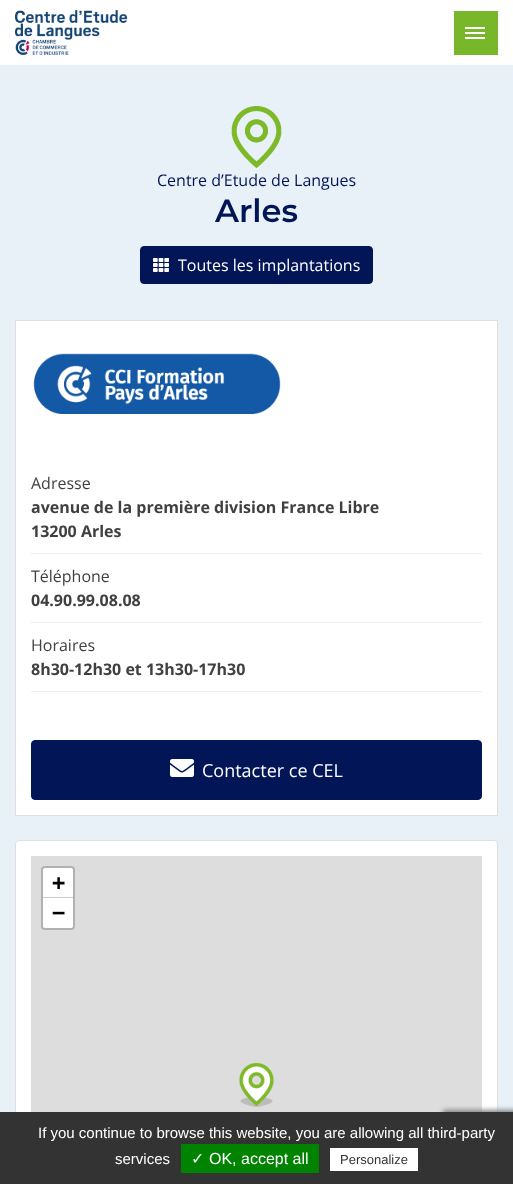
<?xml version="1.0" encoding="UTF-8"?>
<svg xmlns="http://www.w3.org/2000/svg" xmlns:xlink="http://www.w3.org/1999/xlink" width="513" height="1184">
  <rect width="100%" height="100%" fill="#ffffff" />
  <rect y="65" width="513" height="1047" fill="#e8f1f8" />
  <image x="15" y="10" width="113" height="45" xlink:href="image1.png" />
  <rect x="454" y="11" width="44" height="44" fill="#79b72a" />
  <rect x="465" y="32" width="20" height="2" fill="#ffffff" />
  <rect x="465" y="27" width="20" height="2" fill="#ffffff" />
  <rect x="465" y="37" width="20" height="2" fill="#ffffff" />
  <image x="231" y="106" width="51" height="62" xlink:href="image2.png" />
  <rect x="140.5" y="246.5" width="232" height="37" rx="3.5" fill="#021657" stroke="#021657" />
  <image x="153" y="258" width="16" height="14" xlink:href="image3.png" />
  <rect x="15.5" y="320.5" width="482" height="495" fill="#ffffff" stroke="#dfdfdf" />
  <image x="33" y="353" width="248" height="61" xlink:href="image4.png" />
  <rect x="31" y="553" width="451" height="1" fill="#eeeeee" />
  <rect x="31" y="622" width="451" height="1" fill="#eeeeee" />
  <rect x="31" y="691" width="451" height="1" fill="#eeeeee" />
  <rect x="31.5" y="740.5" width="450" height="59" rx="3.5" fill="#021657" stroke="#021657" />
  <image x="170" y="759" width="24" height="18" xlink:href="image5.png" />
  <rect x="15.5" y="840.5" width="482" height="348" rx="3.5" fill="#ffffff" stroke="#dfdfdf" />
  <rect x="31" y="856" width="451" height="256" fill="#dddddd" />
  <rect x="42" y="867" width="32" height="62" rx="3" fill="none" stroke="#b1b1b1" stroke-width="2" />
  <path d="M 45 868 h 26 c 1 0 2 1 2 2 v 28 h -30 v -28 c 0 -1 1 -2 2 -2 z" fill="#ffffff" />
  <rect x="43" y="897" width="30" height="1" fill="#cccccc" />
  <path d="M 43 898 h 30 v 28 c 0 1 -1 2 -2 2 h -26 c -1 0 -2 -1 -2 -2 z" fill="#ffffff" />
  <image x="240" y="1097" width="33" height="10" xlink:href="image7.png" />
  <image x="239" y="1063" width="35" height="43" xlink:href="image6.png" />
  <rect x="443" y="1110" width="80" height="60" rx="2" fill="#808080" filter="blur(2.5px)" />
  <rect y="1112" width="513" height="72" fill="#333333" />
  <rect x="181" y="1144" width="138" height="29" fill="#008300" />
  <rect x="330" y="1148" width="88" height="23" fill="#ffffff" />
  <text x="157" y="186" style="font-family: Open Sans; font-size: 16px; fill: #021657">Centre d’Etude de Langues</text>
  <text x="215" y="222" style="font-family: Montserrat; font-size: 32px; font-weight: 600; fill: #021657">Arles</text>
  <text x="178" y="271" style="font-family: Open Sans; font-size: 16px; fill: #ffffff">Toutes les implantations</text>
  <text x="31" y="489" style="font-family: Open Sans; font-size: 16px; fill: #404040">Adresse</text>
  <text x="31" y="513" style="font-family: Open Sans; font-size: 16px; font-weight: bold; fill: #404040">avenue de la première division France Libre</text>
  <text x="31" y="537" style="font-family: Open Sans; font-size: 16px; font-weight: bold; fill: #404040">13200 Arles</text>
  <text x="31" y="582" style="font-family: Open Sans; font-size: 16px; fill: #404040">Téléphone</text>
  <text x="31" y="606" style="font-family: Open Sans; font-size: 16px; font-weight: bold; fill: #404040">04.90.99.08.08</text>
  <text x="31" y="651" style="font-family: Open Sans; font-size: 16px; fill: #404040">Horaires</text>
  <text x="31" y="675" style="font-family: Open Sans; font-size: 16px; font-weight: bold; fill: #404040">8h30-12h30 et 13h30-17h30</text>
  <text x="202" y="777" style="font-family: Open Sans; font-size: 18px; fill: #ffffff">Contacter ce CEL</text>
  <text x="52" y="890" style="font-family: DejaVu Sans Mono; font-size: 22px; font-weight: bold; fill: #000000">+</text>
  <text x="52" y="920" style="font-family: DejaVu Sans Mono; font-size: 22px; font-weight: bold; fill: #000000">−</text>
  <text x="38" y="1138" style="font-family: Liberation Sans; font-size: 15px; fill: #ffffff">If you continue to browse this website, you are allowing all third-party</text>
  <text x="115" y="1164" style="font-family: Liberation Sans; font-size: 15px; fill: #ffffff">services</text>
  <text x="191" y="1164" style="font-family: DejaVu Sans; font-size: 16px; fill: #ffffff">✓</text>
  <text x="209" y="1164" style="font-family: Liberation Sans; font-size: 16px; fill: #ffffff">OK, accept all</text>
  <text x="340" y="1164" style="font-family: Liberation Sans; font-size: 13px; fill: #333333">Personalize</text>
</svg>
